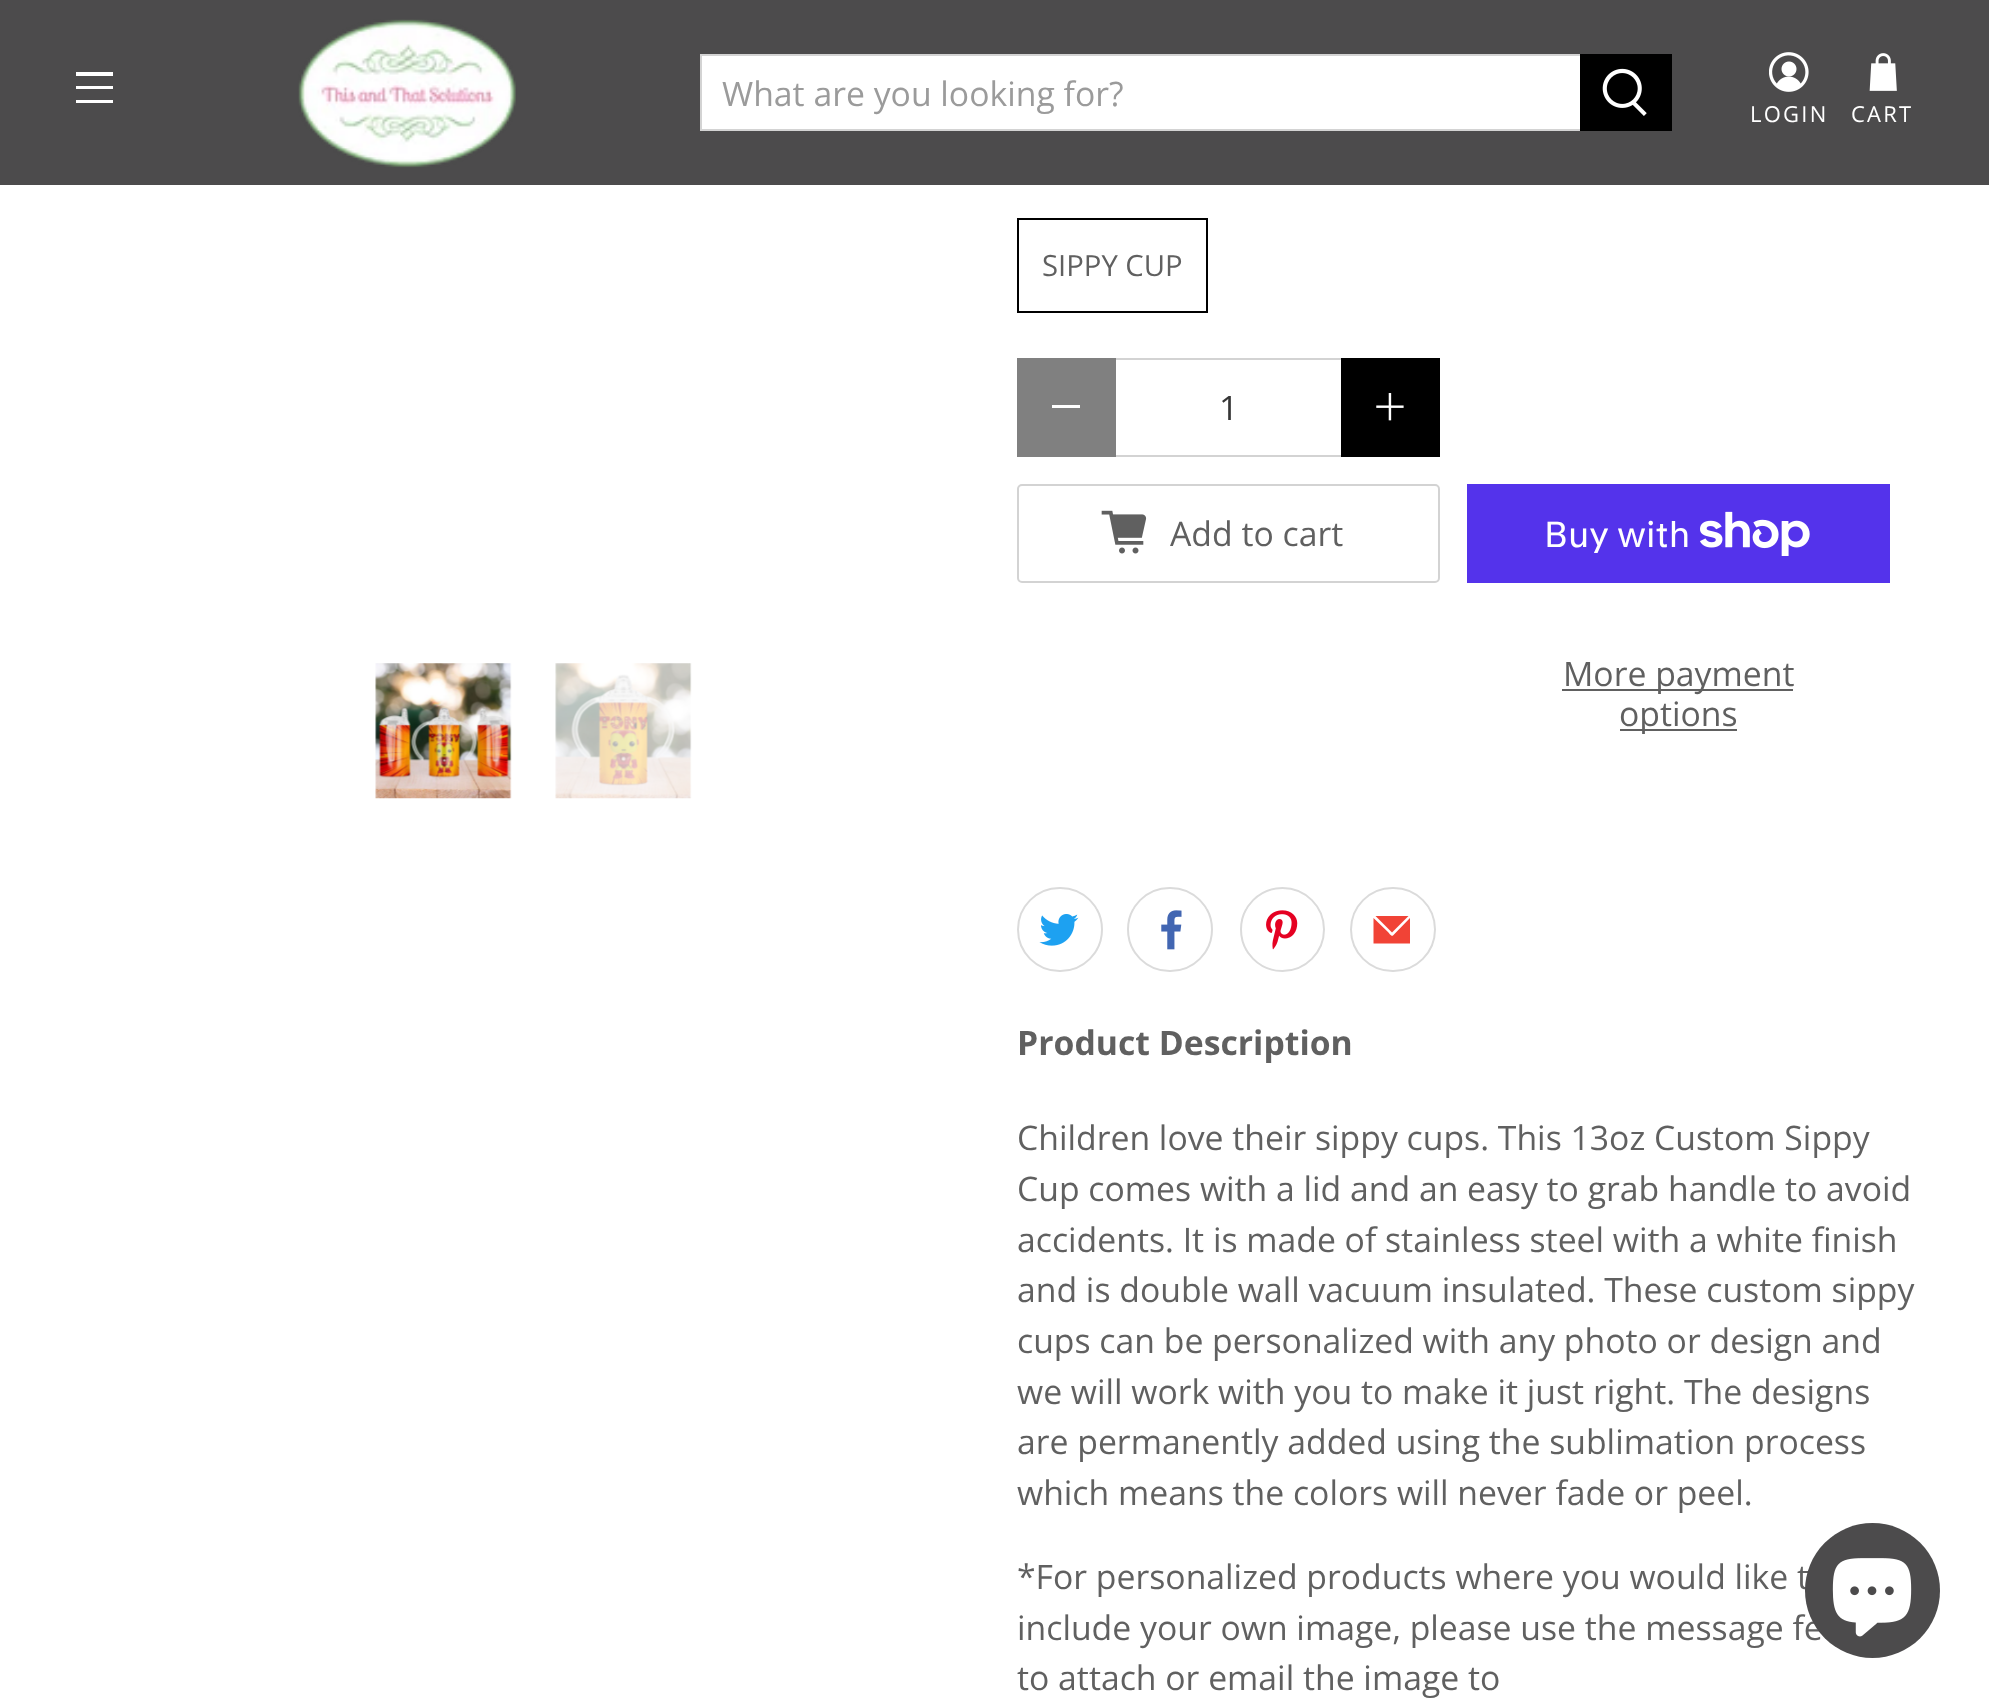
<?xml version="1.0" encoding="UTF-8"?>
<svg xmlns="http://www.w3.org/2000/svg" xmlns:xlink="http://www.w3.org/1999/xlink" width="1989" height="1704">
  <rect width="100%" height="100%" fill="#ffffff" />
  <rect width="1989" height="185" fill="#4c4b4c" />
  <rect x="76" y="72" width="37" height="4" fill="#ffffff" />
  <rect x="76" y="86" width="37" height="3" fill="#ffffff" />
  <rect x="76" y="100" width="37" height="3" fill="#ffffff" />
  <image x="298" y="19" width="218" height="149" xlink:href="image1.png" />
  <rect x="701" y="55" width="880" height="75" fill="#ffffff" stroke="#d3d3d3" stroke-width="2" />
  <rect x="1580" y="54" width="92" height="77" fill="#000000" />
  <image x="1602" y="68" width="45" height="48" xlink:href="image2.png" />
  <image x="1769" y="52" width="40" height="40" xlink:href="image3.png" />
  <image x="1869" y="53" width="28" height="38" xlink:href="image4.png" />
  <image x="375" y="663" width="137" height="136" xlink:href="image5.png" />
  <image x="555" y="663" width="137" height="136" xlink:href="image6.png" />
  <rect x="1018" y="219" width="189" height="93" fill="none" stroke="#000000" stroke-width="2" />
  <rect x="1017" y="358" width="99" height="99" fill="#808080" />
  <rect x="1052" y="405" width="28" height="3" fill="#ffffff" />
  <rect x="1116" y="358" width="225" height="2" fill="#d3d3d3" />
  <rect x="1116" y="455" width="225" height="2" fill="#d3d3d3" />
  <rect x="1341" y="358" width="99" height="99" fill="#000000" />
  <image x="1376" y="393" width="28" height="28" xlink:href="image7.png" />
  <rect x="1018" y="485" width="421" height="97" rx="4" fill="none" stroke="#d3d3d3" stroke-width="2" />
  <image x="1101" y="510" width="46" height="44" xlink:href="image8.png" />
  <rect x="1467" y="484" width="423" height="99" fill="#5433eb" />
  <image x="1700" y="511" width="110" height="45" xlink:href="image9.png" />
  <rect x="1562" y="689" width="231" height="2" fill="#606060" />
  <rect x="1620" y="729" width="117" height="2" fill="#606060" />
  <rect x="1018" y="888" width="84" height="83" rx="41.5" fill="none" stroke="#dbdbdb" stroke-width="2" />
  <image x="1039" y="914" width="40" height="32" xlink:href="image10.png" />
  <rect x="1128" y="888" width="84" height="83" rx="41.5" fill="none" stroke="#dbdbdb" stroke-width="2" />
  <image x="1161" y="910" width="21" height="40" xlink:href="image11.png" />
  <circle cx="1282.5" cy="929.5" r="41.5" fill="none" stroke="#dbdbdb" stroke-width="2" />
  <image x="1266" y="910" width="32" height="40" xlink:href="image12.png" />
  <rect x="1351" y="888" width="84" height="83" rx="41.5" fill="none" stroke="#dbdbdb" stroke-width="2" />
  <path d="M 1393 935.5 c -1.5 1.5 -4.5 -3 -4.5 -3 l -15 -14.5 v 25.5 h 36.5 v -25.5 z" fill="#f14336" />
  <path d="M 1408.5 916 h -33 l 16.5 16.5 z" fill="#f14336" />
  <text x="722" y="106" style="font-family: Open Sans; font-size: 33.75px; fill: #9b9b9b">What are you looking for?</text>
  <text x="1750" y="122" style="font-family: Open Sans; font-size: 22px; letter-spacing: 2.25px; fill: #ffffff">LOGIN</text>
  <text x="1851" y="122" style="font-family: Open Sans; font-size: 22px; letter-spacing: 2.25px; fill: #ffffff">CART</text>
  <text x="1042" y="276" style="font-family: Open Sans; font-size: 29.25px; fill: #606060">SIPPY CUP</text>
  <text x="1219" y="420" style="font-family: Open Sans; font-size: 33.75px; fill: #363636">1</text>
  <text x="1170" y="546" style="font-family: Open Sans; font-size: 33.75px; fill: #606060">Add to cart</text>
  <text x="1544" y="547" style="font-family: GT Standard; font-size: 36px; fill: #ffffff">Buy with</text>
  <text x="1563" y="686" style="font-family: Open Sans; font-size: 33.75px; fill: #606060">More payment</text>
  <text x="1619" y="726" style="font-family: Open Sans; font-size: 33.75px; fill: #606060">options</text>
  <text x="1017" y="1055" style="font-family: Open Sans; font-size: 33.75px; font-weight: bold; fill: #606060">Product Description</text>
  <text x="1017" y="1150" style="font-family: Open Sans; font-size: 33.75px; fill: #606060">Children love their sippy cups. This 13oz Custom Sippy</text>
  <text x="1017" y="1201" style="font-family: Open Sans; font-size: 33.75px; fill: #606060">Cup comes with a lid and an easy to grab handle to avoid</text>
  <text x="1017" y="1252" style="font-family: Open Sans; font-size: 33.75px; fill: #606060">accidents. It is made of stainless steel with a white finish</text>
  <text x="1017" y="1302" style="font-family: Open Sans; font-size: 33.75px; fill: #606060">and is double wall vacuum insulated. These custom sippy</text>
  <text x="1017" y="1353" style="font-family: Open Sans; font-size: 33.75px; fill: #606060">cups can be personalized with any photo or design and</text>
  <text x="1017" y="1404" style="font-family: Open Sans; font-size: 33.75px; fill: #606060">we will work with you to make it just right. The designs</text>
  <text x="1017" y="1454" style="font-family: Open Sans; font-size: 33.75px; fill: #606060">are permanently added using the sublimation process</text>
  <text x="1017" y="1505" style="font-family: Open Sans; font-size: 33.75px; fill: #606060">which means the colors will never fade or peel.</text>
  <text x="1017" y="1589" style="font-family: Open Sans; font-size: 33.75px; fill: #606060">*For personalized products where you would like t</text>
  <text x="1017" y="1640" style="font-family: Open Sans; font-size: 33.75px; fill: #606060">include your own image, please use the message fe</text>
  <text x="1017" y="1690" style="font-family: Open Sans; font-size: 33.75px; fill: #606060">to attach or email the image to</text>
  <circle cx="1872.5" cy="1590.5" r="67.5" fill="#4c4b4c" />
  <image x="1832" y="1558" width="80" height="79" xlink:href="image13.png" />
</svg>
